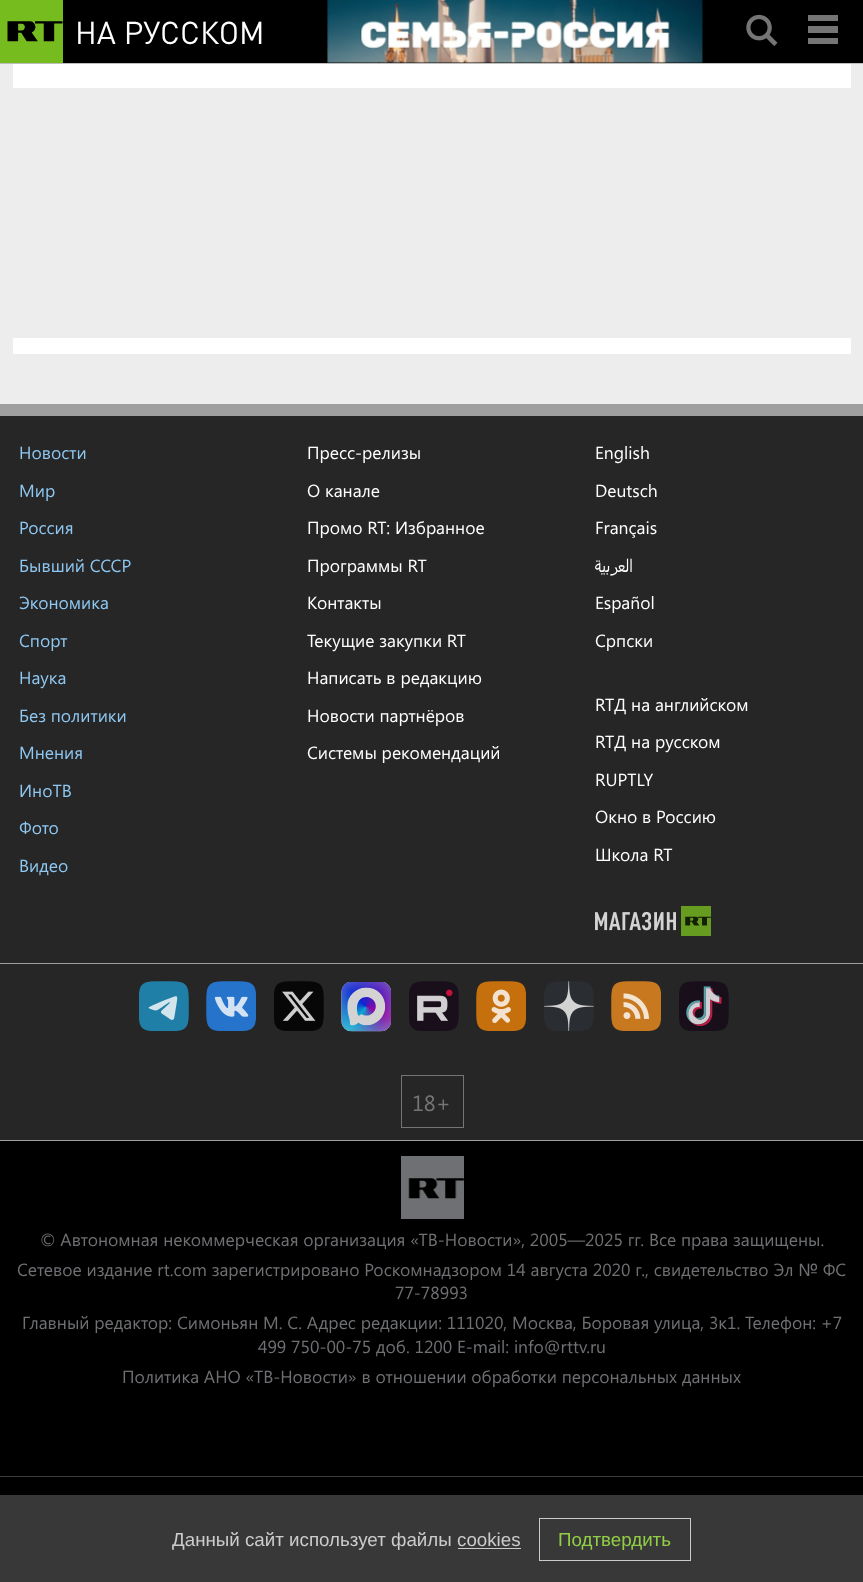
<?xml version="1.0" encoding="UTF-8"?>
<svg xmlns="http://www.w3.org/2000/svg" xmlns:xlink="http://www.w3.org/1999/xlink" width="863" height="1582">
  <rect width="100%" height="100%" fill="#000000" />
  <rect y="1495" width="863" height="87" fill="#383838" />
  <rect y="64" width="863" height="340" fill="#ededed" />
  <rect x="13" y="-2" width="838" height="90" fill="#666666" filter="blur(0.5px)" />
  <rect x="13" y="64" width="838" height="24" fill="#ffffff" />
  <rect x="13" y="338" width="838" height="16" fill="#666666" filter="blur(0.5px)" />
  <rect x="13" y="338" width="838" height="16" fill="#ffffff" />
  <rect x="63" width="789" height="63" fill="#000000" />
  <rect y="63" width="863" height="1" fill="#bebebe" />
  <rect width="63" height="63" fill="#77bc1f" />
  <image x="7" y="21" width="56" height="21" xlink:href="image1.png" />
  <image x="327" y="0" width="376" height="63" xlink:href="image2.png" />
  <image x="746" y="14" width="32" height="32" xlink:href="image3.png" />
  <path d="M 808 32.5 v 11.5 h 30 v -18 h -0.5 v 6.5 z" fill="#757575" />
  <path d="M 808 32.5 v 5.5 h 30 v -18 h -0.5 v 12.5 z" fill="#000000" />
  <rect x="808" y="15" width="30" height="6" fill="#757575" />
  <rect x="808" y="26" width="30" height="7" fill="#757575" />
  <rect y="416" width="863" height="724" fill="#262626" />
  <rect y="404" width="863" height="12" fill="#9f9f9f" />
  <image x="595" y="906" width="116" height="30" xlink:href="image4.png" />
  <image x="139" y="981" width="50" height="50" xlink:href="image5.png" />
  <image x="206" y="981" width="50" height="50" xlink:href="image6.png" />
  <image x="274" y="981" width="50" height="50" xlink:href="image7.png" />
  <image x="341" y="982" width="50" height="50" xlink:href="image8.png" />
  <image x="409" y="981" width="50" height="50" xlink:href="image9.png" />
  <image x="476" y="981" width="50" height="50" xlink:href="image10.png" />
  <image x="544" y="981" width="50" height="50" xlink:href="image11.png" />
  <image x="611" y="981" width="50" height="50" xlink:href="image12.png" />
  <image x="679" y="981" width="50" height="50" xlink:href="image13.png" />
  <rect y="963" width="863" height="1" fill="#9f9f9f" />
  <rect x="401.5" y="1075.5" width="62" height="52" fill="none" stroke="#757575" />
  <rect y="1140" width="863" height="1" fill="#9f9f9f" />
  <rect x="401" y="1156" width="63" height="63" fill="#6f7073" />
  <image x="408" y="1178" width="56" height="21" xlink:href="image14.png" />
  <rect y="1476" width="863" height="1" fill="#3c3c3c" />
  <path d="M 442.5 1538 l -10.5 10.5 v -1.5 l 8.5 -9 z m -10.5 10.5 l -10.5 -10.5 h 1.5 l 9 9 z" fill="#3c3e40" />
  <rect x="458" y="1548" width="63" height="1" fill="#cbcbcb" />
  <rect x="539.5" y="1518.5" width="151" height="42" fill="none" stroke="#d1d1d1" stroke-opacity="0.97" />
  <text x="75" y="44" style="font-family: DIN; font-size: 31.25px; fill: #ffffff">НА РУССКОМ</text>
  <text x="19" y="459" style="font-family: Segoe UI; font-size: 17.5px; fill: #8ec7f1">Новости</text>
  <text x="19" y="497" style="font-family: Segoe UI; font-size: 17.5px; fill: #8ec7f1">Мир</text>
  <text x="19" y="534" style="font-family: Segoe UI; font-size: 17.5px; fill: #8ec7f1">Россия</text>
  <text x="19" y="572" style="font-family: Segoe UI; font-size: 17.5px; fill: #8ec7f1">Бывший СССР</text>
  <text x="19" y="609" style="font-family: Segoe UI; font-size: 17.5px; fill: #8ec7f1">Экономика</text>
  <text x="19" y="647" style="font-family: Segoe UI; font-size: 17.5px; fill: #8ec7f1">Спорт</text>
  <text x="19" y="684" style="font-family: Segoe UI; font-size: 17.5px; fill: #8ec7f1">Наука</text>
  <text x="19" y="722" style="font-family: Segoe UI; font-size: 17.5px; fill: #8ec7f1">Без политики</text>
  <text x="19" y="759" style="font-family: Segoe UI; font-size: 17.5px; fill: #8ec7f1">Мнения</text>
  <text x="19" y="797" style="font-family: Segoe UI; font-size: 17.5px; fill: #8ec7f1">ИноТВ</text>
  <text x="19" y="834" style="font-family: Segoe UI; font-size: 17.5px; fill: #8ec7f1">Фото</text>
  <text x="19" y="872" style="font-family: Segoe UI; font-size: 17.5px; fill: #8ec7f1">Видео</text>
  <text x="307" y="459" style="font-family: Segoe UI; font-size: 17.5px; fill: #ffffff">Пресс-релизы</text>
  <text x="307" y="497" style="font-family: Segoe UI; font-size: 17.5px; fill: #ffffff">О канале</text>
  <text x="307" y="534" style="font-family: Segoe UI; font-size: 17.5px; fill: #ffffff">Промо RT: Избранное</text>
  <text x="307" y="572" style="font-family: Segoe UI; font-size: 17.5px; fill: #ffffff">Программы RT</text>
  <text x="307" y="609" style="font-family: Segoe UI; font-size: 17.5px; fill: #ffffff">Контакты</text>
  <text x="307" y="647" style="font-family: Segoe UI; font-size: 17.5px; fill: #ffffff">Текущие закупки RT</text>
  <text x="307" y="684" style="font-family: Segoe UI; font-size: 17.5px; fill: #ffffff">Написать в редакцию</text>
  <text x="307" y="722" style="font-family: Segoe UI; font-size: 17.5px; fill: #ffffff">Новости партнёров</text>
  <text x="307" y="759" style="font-family: Segoe UI; font-size: 17.5px; fill: #ffffff">Системы рекомендаций</text>
  <text x="595" y="459" style="font-family: Segoe UI; font-size: 17.5px; fill: #ffffff">English</text>
  <text x="595" y="497" style="font-family: Segoe UI; font-size: 17.5px; fill: #ffffff">Deutsch</text>
  <text x="595" y="534" style="font-family: Segoe UI; font-size: 17.5px; fill: #ffffff">Français</text>
  <text x="633" y="572" style="font-family: Segoe UI; font-size: 17.5px; direction: rtl; fill: #ffffff">العربية</text>
  <text x="595" y="609" style="font-family: Segoe UI; font-size: 17.5px; fill: #ffffff">Español</text>
  <text x="595" y="647" style="font-family: Segoe UI; font-size: 17.5px; fill: #ffffff">Српски</text>
  <text x="595" y="711" style="font-family: Segoe UI; font-size: 17.5px; fill: #ffffff">RTД на английском</text>
  <text x="595" y="748" style="font-family: Segoe UI; font-size: 17.5px; fill: #ffffff">RTД на русском</text>
  <text x="595" y="786" style="font-family: Segoe UI; font-size: 17.5px; fill: #ffffff">RUPTLY</text>
  <text x="595" y="823" style="font-family: Segoe UI; font-size: 17.5px; fill: #ffffff">Окно в Россию</text>
  <text x="595" y="861" style="font-family: Segoe UI; font-size: 17.5px; fill: #ffffff">Школа RT</text>
  <text x="412" y="1111" style="font-family: Segoe UI; font-size: 22px; fill: #757575">18+</text>
  <text x="40" y="1246" style="font-family: Segoe UI; font-size: 17.5px; fill: #6f7073">© Автономная некоммерческая организация «ТВ-Новости», 2005—2025 гг. Все права защищены.</text>
  <text x="17" y="1276" style="font-family: Segoe UI; font-size: 17.5px; fill: #6f7073">Сетевое издание rt.com зарегистрировано Роскомнадзором 14 августа 2020 г., свидетельство Эл № ФС</text>
  <text x="395" y="1299" style="font-family: Segoe UI; font-size: 17.5px; fill: #6f7073">77-78993</text>
  <text x="22" y="1329" style="font-family: Segoe UI; font-size: 17.5px; fill: #6f7073">Главный редактор: Симоньян М. С. Адрес редакции: 111020, Москва, Боровая улица, 3к1. Телефон: +7</text>
  <text x="258" y="1353" style="font-family: Segoe UI; font-size: 17.5px; fill: #6f7073">499 750-00-75 доб. 1200 E-mail: info@rttv.ru</text>
  <text x="122" y="1383" style="font-family: Segoe UI; font-size: 17.5px; fill: #6f7073">Политика АНО «ТВ-Новости» в отношении обработки персональных данных</text>
  <text x="172" y="1546" style="font-family: Liberation Sans; font-size: 18.75px; fill: #cccccc">Данный сайт использует файлы</text>
  <text x="457" y="1546" style="font-family: Liberation Sans; font-size: 18.75px; fill: #cccccc">cookies</text>
  <text x="558" y="1546" style="font-family: Liberation Sans; font-size: 18.75px; fill: #92ce45">Подтвердить</text>
</svg>
